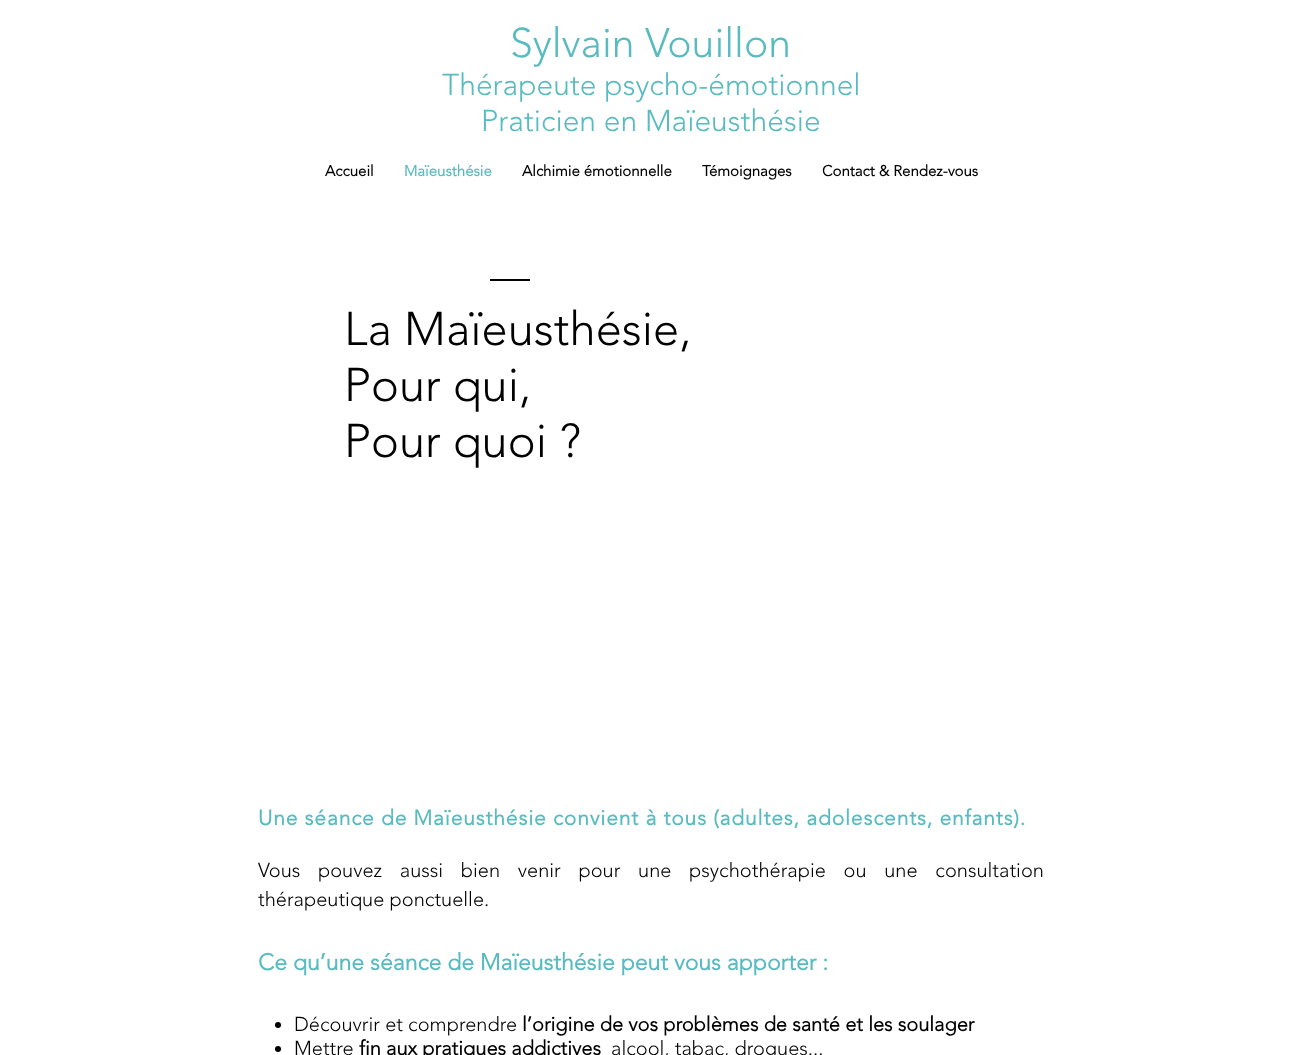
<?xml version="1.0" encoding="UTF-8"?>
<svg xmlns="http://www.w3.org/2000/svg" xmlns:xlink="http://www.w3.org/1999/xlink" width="1302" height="1055">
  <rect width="100%" height="100%" fill="#ffffff" />
  <rect x="490" y="279" width="40" height="2" fill="#000000" />
  <circle cx="278" cy="1025" r="3" fill="#000000" />
  <circle cx="278" cy="1049" r="3" fill="#000000" />
  <text x="510" y="57" style="font-family: 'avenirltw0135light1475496'; font-size: 41px; font-weight: 300; fill: #57bbbf">Sylvain Vouillon</text>
  <text x="442" y="95" style="font-family: 'avenirltw0135light1475496'; font-size: 30px; font-weight: 300; fill: #57bbbf">Thérapeute psycho-émotionnel</text>
  <text x="481" y="131" style="font-family: 'avenirltw0135light1475496'; font-size: 30px; font-weight: 300; fill: #57bbbf">Praticien en Maïeusthésie</text>
  <text x="325" y="176" style="font-family: 'avenirltw0135light1475496'; font-size: 15px; font-weight: bold; fill: #000000">Accueil</text>
  <text x="404" y="176" style="font-family: 'avenirltw0135light1475496'; font-size: 15px; font-weight: bold; fill: #57bbbf">Maïeusthésie</text>
  <text x="522" y="176" style="font-family: 'avenirltw0135light1475496'; font-size: 15px; font-weight: bold; fill: #000000">Alchimie émotionnelle</text>
  <text x="702" y="176" style="font-family: 'avenirltw0135light1475496'; font-size: 15px; font-weight: bold; fill: #000000">Témoignages</text>
  <text x="822" y="176" style="font-family: 'avenirltw0135light1475496'; font-size: 15px; font-weight: bold; fill: #000000">Contact &amp; Rendez-vous</text>
  <text x="344" y="345" style="font-family: 'avenirltw0135light1475496'; font-size: 47px; font-weight: 300; fill: #000000">La Maïeusthésie,</text>
  <text x="344" y="401" style="font-family: 'avenirltw0135light1475496'; font-size: 47px; font-weight: 300; fill: #000000">Pour qui,</text>
  <text x="344" y="457" style="font-family: 'avenirltw0135light1475496'; font-size: 47px; font-weight: 300; fill: #000000">Pour quoi ?</text>
  <text x="258" y="825" style="font-family: 'avenirltw0135light1475496'; font-size: 21px; font-weight: bold; letter-spacing: 0.85px; fill: #57bbbf">Une séance de Maïeusthésie convient à tous (adultes, adolescents, enfants).</text>
  <text x="258" y="877" word-spacing="12.5" style="font-family: 'avenirltw0135light1475496'; font-size: 20px; font-weight: 300; fill: #000000">Vous pouvez aussi bien venir pour une psychothérapie ou une consultation</text>
  <text x="258" y="906" style="font-family: 'avenirltw0135light1475496'; font-size: 20px; font-weight: 300; fill: #000000">thérapeutique ponctuelle.</text>
  <text x="258" y="970" style="font-family: 'avenirltw0135light1475496'; font-size: 23px; font-weight: bold; fill: #57bbbf">Ce qu’une séance de Maïeusthésie peut vous apporter :</text>
  <text x="294" y="1031" style="font-family: 'avenirltw0135light1475496'; font-size: 20px; font-weight: 300; fill: #000000">Découvrir et comprendre</text>
  <text x="522" y="1031" style="font-family: 'avenirltw0135light1475496'; font-size: 20px; font-weight: bold; fill: #000000">l’origine de vos problèmes de santé et les soulager</text>
  <text x="294" y="1055" style="font-family: 'avenirltw0135light1475496'; font-size: 20px; font-weight: 300; fill: #000000">Mettre</text>
  <text x="359" y="1055" style="font-family: 'avenirltw0135light1475496'; font-size: 20px; font-weight: bold; fill: #000000">fin aux pratiques addictives</text>
  <text x="611" y="1055" style="font-family: 'avenirltw0135light1475496'; font-size: 20px; font-weight: 300; fill: #000000">alcool, tabac, drogues...</text>
</svg>
